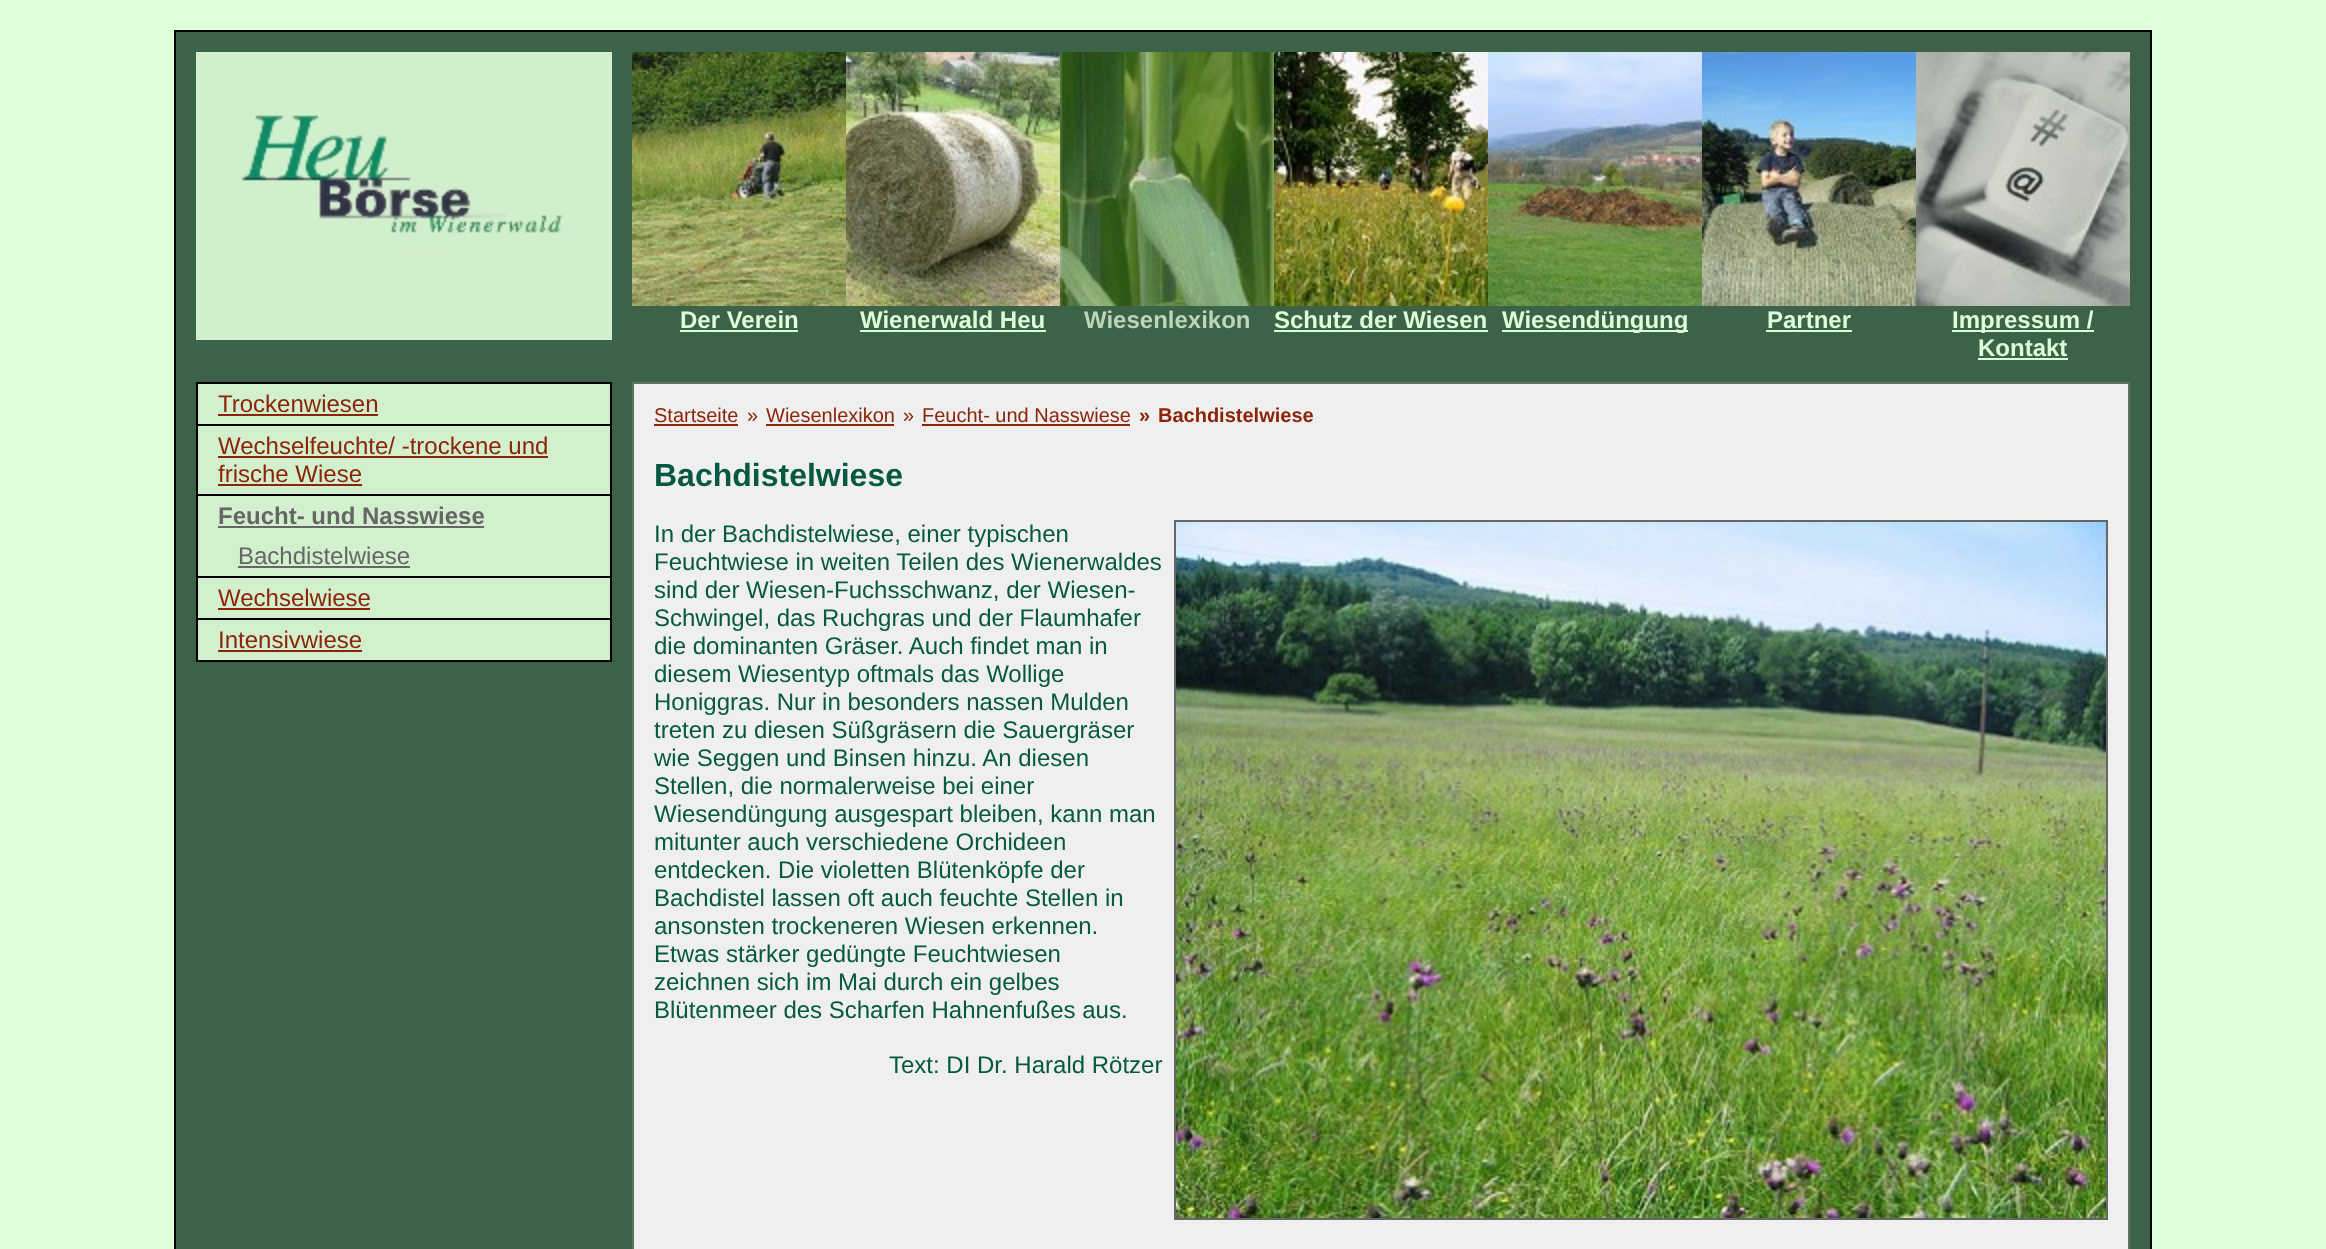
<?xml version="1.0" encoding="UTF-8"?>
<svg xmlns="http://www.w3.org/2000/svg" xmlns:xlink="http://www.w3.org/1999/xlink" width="2326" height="1249">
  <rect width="100%" height="100%" fill="#e0ffdb" />
  <rect x="175" y="31" width="1976" height="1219" fill="#3c6347" stroke="#000000" stroke-width="2" />
  <image x="196" y="52" width="416" height="288" xlink:href="image1.png" />
  <image x="632" y="52" width="214" height="254" xlink:href="image2.png" />
  <rect x="680" y="330" width="118" height="2" fill="#defdd9" />
  <image x="846" y="52" width="214" height="254" xlink:href="image3.png" />
  <rect x="860" y="330" width="186" height="2" fill="#defdd9" />
  <image x="1060" y="52" width="214" height="254" xlink:href="image4.png" />
  <image x="1274" y="52" width="214" height="254" xlink:href="image5.png" />
  <rect x="1274" y="330" width="214" height="2" fill="#defdd9" />
  <image x="1488" y="52" width="214" height="254" xlink:href="image6.png" />
  <rect x="1502" y="330" width="186" height="2" fill="#defdd9" />
  <image x="1702" y="52" width="214" height="254" xlink:href="image7.png" />
  <rect x="1766" y="330" width="86" height="2" fill="#defdd9" />
  <image x="1916" y="52" width="214" height="254" xlink:href="image8.png" />
  <rect x="1952" y="330" width="142" height="2" fill="#defdd9" />
  <rect x="1978" y="358" width="90" height="2" fill="#defdd9" />
  <rect x="198" y="384" width="412" height="276" fill="#d3f0ce" />
  <rect x="196" y="382" width="416" height="2" fill="#000000" />
  <rect x="610" y="382" width="2" height="280" fill="#000000" />
  <rect x="196" y="382" width="2" height="280" fill="#000000" />
  <rect x="198" y="424" width="412" height="2" fill="#000000" />
  <rect x="218" y="414" width="160" height="2" fill="#8c2408" />
  <rect x="198" y="494" width="412" height="2" fill="#000000" />
  <rect x="218" y="456" width="330" height="2" fill="#8c2408" />
  <rect x="218" y="484" width="144" height="2" fill="#8c2408" />
  <rect x="198" y="576" width="412" height="2" fill="#000000" />
  <rect x="218" y="526" width="266" height="2" fill="#666666" />
  <rect x="238" y="566" width="172" height="2" fill="#666666" />
  <rect x="198" y="618" width="412" height="2" fill="#000000" />
  <rect x="218" y="608" width="152" height="2" fill="#8c2408" />
  <rect x="198" y="660" width="412" height="2" fill="#000000" />
  <rect x="218" y="650" width="144" height="2" fill="#8c2408" />
  <rect x="633" y="383" width="1496" height="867" fill="#efefef" stroke="#637061" stroke-width="2" />
  <rect x="654" y="424" width="84" height="2" fill="#8c2408" />
  <rect x="766" y="424" width="128" height="2" fill="#8c2408" />
  <rect x="922" y="424" width="208" height="2" fill="#8c2408" />
  <rect x="1175" y="521" width="932" height="698" fill="none" stroke="#666666" stroke-width="2" />
  <image x="1176" y="522" width="930" height="696" xlink:href="image9.png" />
  <text x="680" y="328" style="font-family: Liberation Sans; font-size: 24px; font-weight: bold; fill: #defdd9">Der Verein</text>
  <text x="860" y="328" style="font-family: Liberation Sans; font-size: 24px; font-weight: bold; fill: #defdd9">Wienerwald Heu</text>
  <text x="1084" y="328" style="font-family: Liberation Sans; font-size: 24px; font-weight: bold; fill: #bdd6b8">Wiesenlexikon</text>
  <text x="1274" y="328" style="font-family: Liberation Sans; font-size: 24px; font-weight: bold; fill: #defdd9">Schutz der Wiesen</text>
  <text x="1502" y="328" style="font-family: Liberation Sans; font-size: 24px; font-weight: bold; fill: #defdd9">Wiesendüngung</text>
  <text x="1767" y="328" style="font-family: Liberation Sans; font-size: 24px; font-weight: bold; fill: #defdd9">Partner</text>
  <text x="1952" y="328" style="font-family: Liberation Sans; font-size: 24px; font-weight: bold; fill: #defdd9">Impressum /</text>
  <text x="1978" y="356" style="font-family: Liberation Sans; font-size: 24px; font-weight: bold; fill: #defdd9">Kontakt</text>
  <text x="218" y="412" style="font-family: Liberation Sans; font-size: 24px; fill: #8c2408">Trockenwiesen</text>
  <text x="218" y="454" style="font-family: Liberation Sans; font-size: 24px; fill: #8c2408">Wechselfeuchte/ -trockene und</text>
  <text x="218" y="482" style="font-family: Liberation Sans; font-size: 24px; fill: #8c2408">frische Wiese</text>
  <text x="218" y="524" style="font-family: Liberation Sans; font-size: 24px; font-weight: bold; fill: #666666">Feucht- und Nasswiese</text>
  <text x="238" y="564" style="font-family: Liberation Sans; font-size: 24px; fill: #666666">Bachdistelwiese</text>
  <text x="218" y="606" style="font-family: Liberation Sans; font-size: 24px; fill: #8c2408">Wechselwiese</text>
  <text x="218" y="648" style="font-family: Liberation Sans; font-size: 24px; fill: #8c2408">Intensivwiese</text>
  <text x="654" y="422" style="font-family: Liberation Sans; font-size: 20px; fill: #8c2408">Startseite</text>
  <text x="747" y="422" style="font-family: Liberation Sans; font-size: 20px; fill: #8c2408">»</text>
  <text x="766" y="422" style="font-family: Liberation Sans; font-size: 20px; fill: #8c2408">Wiesenlexikon</text>
  <text x="903" y="422" style="font-family: Liberation Sans; font-size: 20px; fill: #8c2408">»</text>
  <text x="922" y="422" style="font-family: Liberation Sans; font-size: 20px; fill: #8c2408">Feucht- und Nasswiese</text>
  <text x="1139" y="422" style="font-family: Liberation Sans; font-size: 20px; font-weight: bold; fill: #8c2408">»</text>
  <text x="1158" y="422" style="font-family: Liberation Sans; font-size: 20px; font-weight: bold; fill: #8c2408">Bachdistelwiese</text>
  <text x="654" y="486" style="font-family: Liberation Sans; font-size: 32px; font-weight: bold; fill: #055940">Bachdistelwiese</text>
  <text x="654" y="542" style="font-family: Liberation Sans; font-size: 24px; fill: #055940">In der Bachdistelwiese, einer typischen</text>
  <text x="654" y="570" style="font-family: Liberation Sans; font-size: 24px; fill: #055940">Feuchtwiese in weiten Teilen des Wienerwaldes</text>
  <text x="654" y="598" style="font-family: Liberation Sans; font-size: 24px; fill: #055940">sind der Wiesen-Fuchsschwanz, der Wiesen-</text>
  <text x="654" y="626" style="font-family: Liberation Sans; font-size: 24px; fill: #055940">Schwingel, das Ruchgras und der Flaumhafer</text>
  <text x="654" y="654" style="font-family: Liberation Sans; font-size: 24px; fill: #055940">die dominanten Gräser. Auch findet man in</text>
  <text x="654" y="682" style="font-family: Liberation Sans; font-size: 24px; fill: #055940">diesem Wiesentyp oftmals das Wollige</text>
  <text x="654" y="710" style="font-family: Liberation Sans; font-size: 24px; fill: #055940">Honiggras. Nur in besonders nassen Mulden</text>
  <text x="654" y="738" style="font-family: Liberation Sans; font-size: 24px; fill: #055940">treten zu diesen Süßgräsern die Sauergräser</text>
  <text x="654" y="766" style="font-family: Liberation Sans; font-size: 24px; fill: #055940">wie Seggen und Binsen hinzu. An diesen</text>
  <text x="654" y="794" style="font-family: Liberation Sans; font-size: 24px; fill: #055940">Stellen, die normalerweise bei einer</text>
  <text x="654" y="822" style="font-family: Liberation Sans; font-size: 24px; fill: #055940">Wiesendüngung ausgespart bleiben, kann man</text>
  <text x="654" y="850" style="font-family: Liberation Sans; font-size: 24px; fill: #055940">mitunter auch verschiedene Orchideen</text>
  <text x="654" y="878" style="font-family: Liberation Sans; font-size: 24px; fill: #055940">entdecken. Die violetten Blütenköpfe der</text>
  <text x="654" y="906" style="font-family: Liberation Sans; font-size: 24px; fill: #055940">Bachdistel lassen oft auch feuchte Stellen in</text>
  <text x="654" y="934" style="font-family: Liberation Sans; font-size: 24px; fill: #055940">ansonsten trockeneren Wiesen erkennen.</text>
  <text x="654" y="962" style="font-family: Liberation Sans; font-size: 24px; fill: #055940">Etwas stärker gedüngte Feuchtwiesen</text>
  <text x="654" y="990" style="font-family: Liberation Sans; font-size: 24px; fill: #055940">zeichnen sich im Mai durch ein gelbes</text>
  <text x="654" y="1018" style="font-family: Liberation Sans; font-size: 24px; fill: #055940">Blütenmeer des Scharfen Hahnenfußes aus.</text>
  <text x="889" y="1073" style="font-family: Liberation Sans; font-size: 24px; fill: #055940">Text: DI Dr. Harald Rötzer</text>
</svg>
